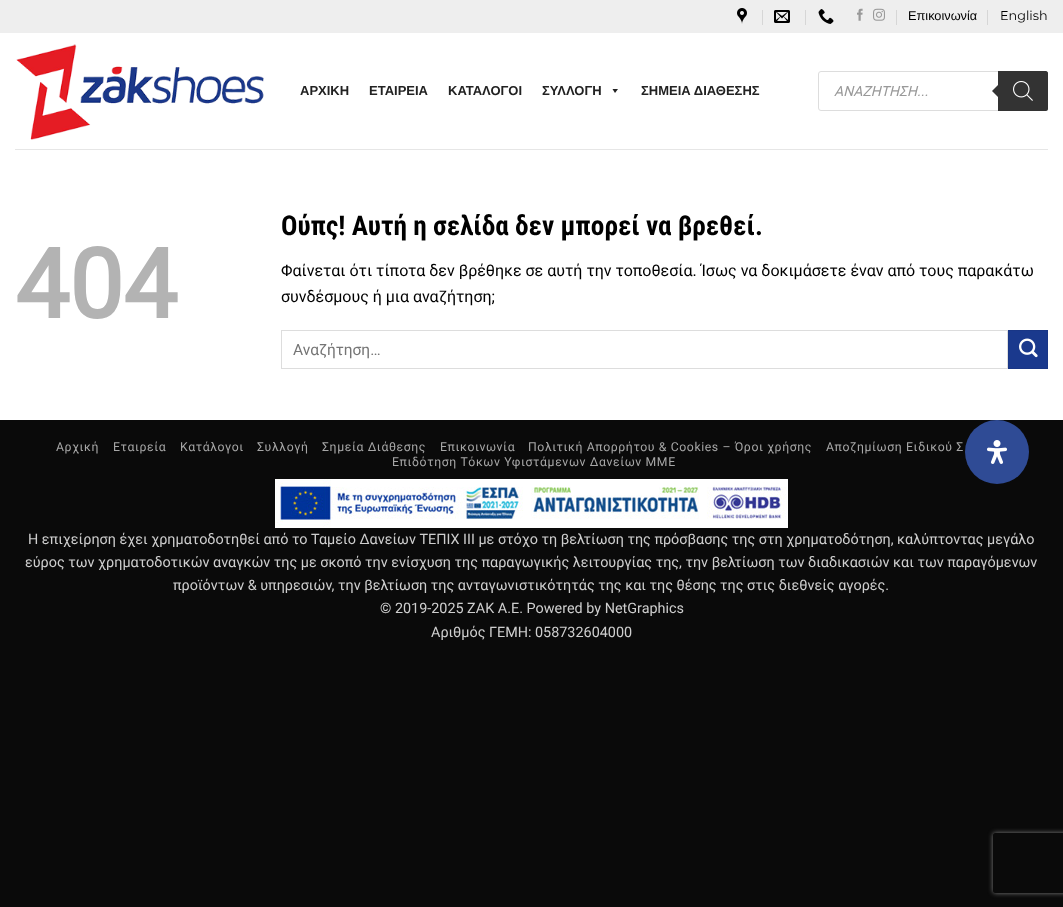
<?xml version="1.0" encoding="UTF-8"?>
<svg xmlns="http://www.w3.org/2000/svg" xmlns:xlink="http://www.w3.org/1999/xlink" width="1063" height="907">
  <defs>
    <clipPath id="clip1"><path d="M 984 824 h 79 v 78 h -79 z m 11 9 h 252 c 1 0 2 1 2 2 v 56 c 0 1 -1 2 -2 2 h -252 c -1 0 -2 -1 -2 -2 v -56 c 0 -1 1 -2 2 -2 z" clip-rule="evenodd" /></clipPath>
  </defs>
  <rect width="100%" height="100%" fill="#0a0a0a" />
  <rect y="33" width="1063" height="387" fill="#ffffff" />
  <rect width="1063" height="33" fill="#eeeeee" />
  <image x="737" y="8" width="10" height="16" xlink:href="image1.png" />
  <rect x="762" y="10" width="1" height="15" fill="#d6d6d6" />
  <image x="774" y="10" width="16" height="13" xlink:href="image2.png" />
  <rect x="805" y="10" width="1" height="15" fill="#d6d6d6" />
  <image x="818" y="9" width="16" height="15" xlink:href="image3.png" />
  <image x="857" y="8" width="6" height="13" xlink:href="image4.png" />
  <image x="873" y="8" width="12" height="13" xlink:href="image5.png" />
  <rect x="896" y="10" width="1" height="15" fill="#d6d6d6" />
  <rect x="987" y="10" width="1" height="15" fill="#d6d6d6" />
  <image x="16" y="44" width="248" height="96" xlink:href="image6.png" />
  <path d="M 618 89 l -3 4 l -2.5 -4 z" fill="#222222" />
  <rect x="818.5" y="71.5" width="229" height="39" rx="2.5" fill="none" stroke="#dddddd" />
  <path d="M 998 71 h 48 c 1 0 2 1 2 2 v 36 c 0 1 -1 2 -2 2 h -48 z" fill="#333333" />
  <path d="M 1000 83 v 16 l -8 -8 z" fill="#333333" />
  <image x="1013" y="81" width="20" height="20" xlink:href="image7.png" />
  <rect x="15" y="149" width="1033" height="1" fill="#e6e6e6" />
  <rect x="281.5" y="330.5" width="726" height="38" fill="none" stroke="#dddddd" />
  <rect x="1008.5" y="330.5" width="39" height="38" fill="#1a398d" stroke="#193686" />
  <image x="1019" y="338" width="19" height="20" xlink:href="image8.png" />
  <image x="275" y="479" width="513" height="49" xlink:href="image9.png" />
  <circle cx="997" cy="452" r="32" fill="#2f4b95" />
  <image x="987" y="440" width="20" height="24" xlink:href="image10.png" />
  <g clip-path="url(#clip1)">
    <rect x="993" y="833" width="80" height="60" rx="2" fill="#808080" filter="blur(2.5px)" />
  </g>
  <text x="908" y="20" style="font-family: Liberation Sans; font-size: 12.75px; fill: #000000">Επικοινωνία</text>
  <text x="1000" y="20" style="font-family: Montserrat; font-size: 12.75px; font-weight: 100; fill: #000000">English</text>
  <text x="300" y="95" style="font-family: Liberation Sans; font-size: 13px; font-weight: bold; fill: #222222">ΑΡΧΙΚΗ</text>
  <text x="369" y="95" style="font-family: Liberation Sans; font-size: 13px; font-weight: bold; fill: #222222">ΕΤΑΙΡΕΙΑ</text>
  <text x="448" y="95" style="font-family: Liberation Sans; font-size: 13px; font-weight: bold; fill: #222222">ΚΑΤΑΛΟΓΟΙ</text>
  <text x="542" y="95" style="font-family: Liberation Sans; font-size: 13px; font-weight: bold; fill: #222222">ΣΥΛΛΟΓΗ</text>
  <text x="641" y="95" style="font-family: Liberation Sans; font-size: 13px; font-weight: bold; fill: #222222">ΣΗΜΕΙΑ ΔΙΑΘΕΣΗΣ</text>
  <text x="834" y="96" style="font-family: Roboto; font-size: 14px; font-style: italic; fill: #999999">ΑΝΑΖΗΤΗΣΗ...</text>
  <text x="15" y="318" style="font-family: Roboto; font-size: 96px; font-weight: bold; fill: #b3b3b3">404</text>
  <text x="281" y="235" style="font-family: Roboto Condensed; font-size: 27.25px; font-weight: bold; fill: #000000">Ούπς! Αυτή η σελίδα δεν μπορεί να βρεθεί.</text>
  <text x="281" y="276" style="font-family: Roboto; font-size: 16px; fill: #000000">Φαίνεται ότι τίποτα δεν βρέθηκε σε αυτή την τοποθεσία. Ίσως να δοκιμάσετε έναν από τους παρακάτω</text>
  <text x="281" y="302" style="font-family: Roboto; font-size: 16px; fill: #000000">συνδέσμους ή μια αναζήτηση;</text>
  <text x="293" y="355" style="font-family: Roboto; font-size: 15.5px; fill: #757575">Αναζήτηση…</text>
  <text x="56" y="451" style="font-family: Roboto; font-size: 12.25px; letter-spacing: 0.6px; fill: #a7a7a7">Αρχική</text>
  <text x="113" y="451" style="font-family: Roboto; font-size: 12.25px; letter-spacing: 0.6px; fill: #a7a7a7">Εταιρεία</text>
  <text x="180" y="451" style="font-family: Roboto; font-size: 12.25px; letter-spacing: 0.6px; fill: #a7a7a7">Κατάλογοι</text>
  <text x="257" y="451" style="font-family: Roboto; font-size: 12.25px; letter-spacing: 0.6px; fill: #a7a7a7">Συλλογή</text>
  <text x="322" y="451" style="font-family: Roboto; font-size: 12.25px; letter-spacing: 0.6px; fill: #a7a7a7">Σημεία Διάθεσης</text>
  <text x="440" y="451" style="font-family: Roboto; font-size: 12.25px; letter-spacing: 0.6px; fill: #a7a7a7">Επικοινωνία</text>
  <text x="528" y="451" style="font-family: Roboto; font-size: 12.25px; letter-spacing: 0.6px; fill: #a7a7a7">Πολιτική Απορρήτου &amp; Cookies – Όροι χρήσης</text>
  <text x="826" y="451" style="font-family: Roboto; font-size: 12.25px; letter-spacing: 0.6px; fill: #a7a7a7">Αποζημίωση Ειδικού Σ</text>
  <text x="392" y="466" style="font-family: Roboto; font-size: 12.25px; letter-spacing: 0.6px; fill: #a7a7a7">Επιδότηση Τόκων Υφιστάμενων Δανείων ΜΜΕ</text>
  <text x="28" y="544" style="font-family: Roboto; font-size: 14.4px; fill: #cecece">Η επιχείρηση έχει χρηματοδοτηθεί από το Ταμείο Δανείων ΤΕΠΙΧ ΙΙΙ με στόχο τη βελτίωση της πρόσβασης της στη χρηματοδότηση, καλύπτοντας μεγάλο</text>
  <text x="25" y="567" style="font-family: Roboto; font-size: 14.4px; fill: #cecece">εύρος των χρηματοδοτικών αναγκών της με σκοπό την ενίσχυση της παραγωγικής λειτουργίας της, την βελτίωση των διαδικασιών και των παραγόμενων</text>
  <text x="173" y="590" style="font-family: Roboto; font-size: 14.4px; fill: #cecece">προϊόντων &amp; υπηρεσιών, την βελτίωση της ανταγωνιστικότητάς της και της θέσης της στις διεθνείς αγορές.</text>
  <text x="380" y="613" style="font-family: Roboto; font-size: 14.4px; fill: #cecece">© 2019-2025 ZAK A.E. Powered by NetGraphics</text>
  <text x="431" y="637" style="font-family: Roboto; font-size: 14.4px; fill: #cecece">Αριθμός ΓΕΜΗ: 058732604000</text>
</svg>
